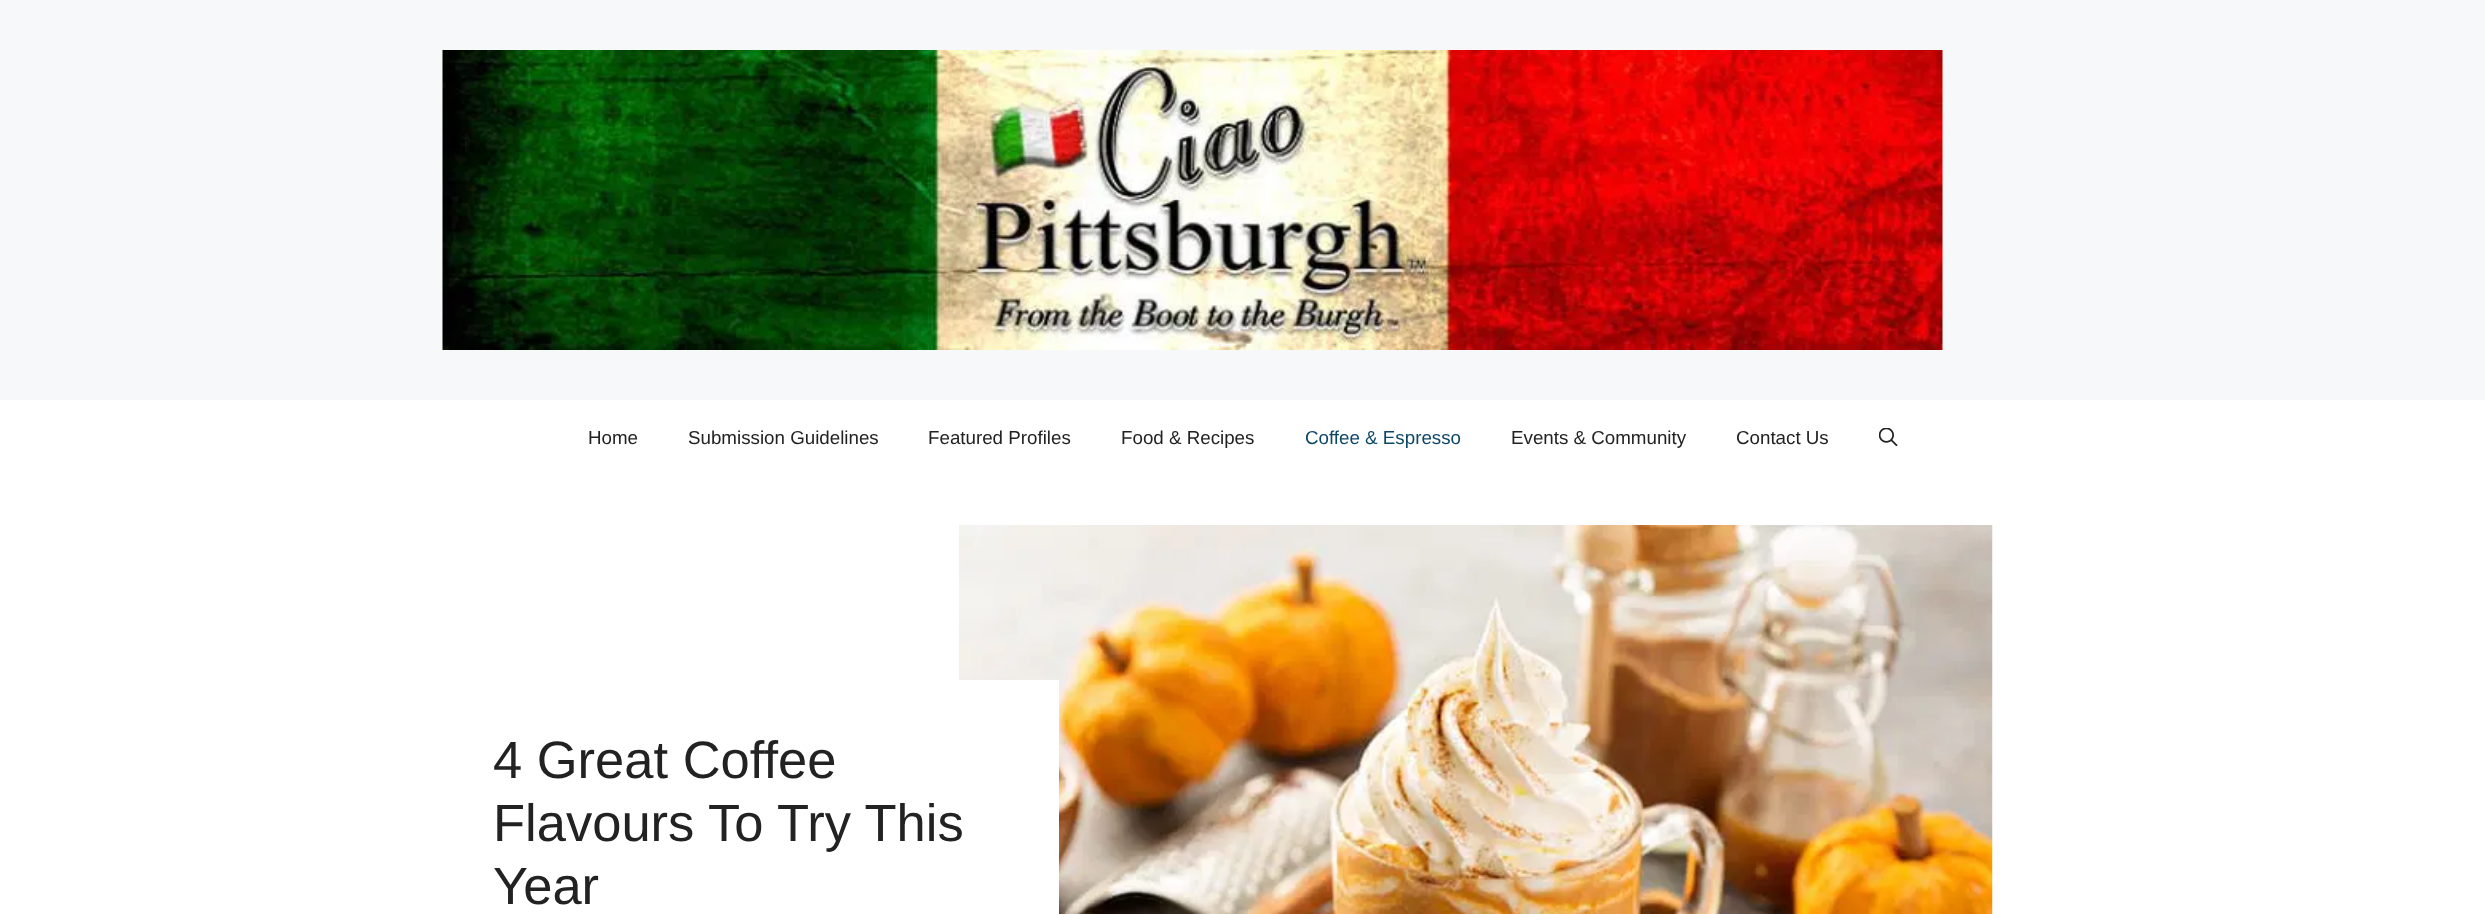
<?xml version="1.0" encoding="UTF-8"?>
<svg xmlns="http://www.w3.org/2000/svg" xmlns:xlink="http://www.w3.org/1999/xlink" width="2485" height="914">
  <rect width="100%" height="100%" fill="#ffffff" />
  <rect width="2485" height="400" fill="#f7f8f9" />
  <image x="442" y="50" width="1501" height="300" xlink:href="image1.png" />
  <image x="1879" y="428" width="19" height="18" xlink:href="image2.png" />
  <image x="958" y="525" width="1035" height="389" xlink:href="image3.png" />
  <rect x="958" y="680" width="101" height="234" fill="#ffffff" />
  <text x="588" y="444" style="font-family: Liberation Sans; font-size: 18.75px; fill: #222222">Home</text>
  <text x="688" y="444" style="font-family: Liberation Sans; font-size: 18.75px; fill: #222222">Submission Guidelines</text>
  <text x="928" y="444" style="font-family: Liberation Sans; font-size: 18.75px; fill: #222222">Featured Profiles</text>
  <text x="1121" y="444" style="font-family: Liberation Sans; font-size: 18.75px; fill: #222222">Food &amp; Recipes</text>
  <text x="1305" y="444" style="font-family: Liberation Sans; font-size: 18.75px; fill: #0c4767">Coffee &amp; Espresso</text>
  <text x="1511" y="444" style="font-family: Liberation Sans; font-size: 18.75px; fill: #222222">Events &amp; Community</text>
  <text x="1736" y="444" style="font-family: Liberation Sans; font-size: 18.75px; fill: #222222">Contact Us</text>
  <text x="493" y="778" style="font-family: Liberation Sans; font-size: 52.5px; fill: #222222">4 Great Coffee</text>
  <text x="493" y="841" style="font-family: Liberation Sans; font-size: 52.5px; fill: #222222">Flavours To Try This</text>
  <text x="493" y="904" style="font-family: Liberation Sans; font-size: 52.5px; fill: #222222">Year</text>
</svg>
